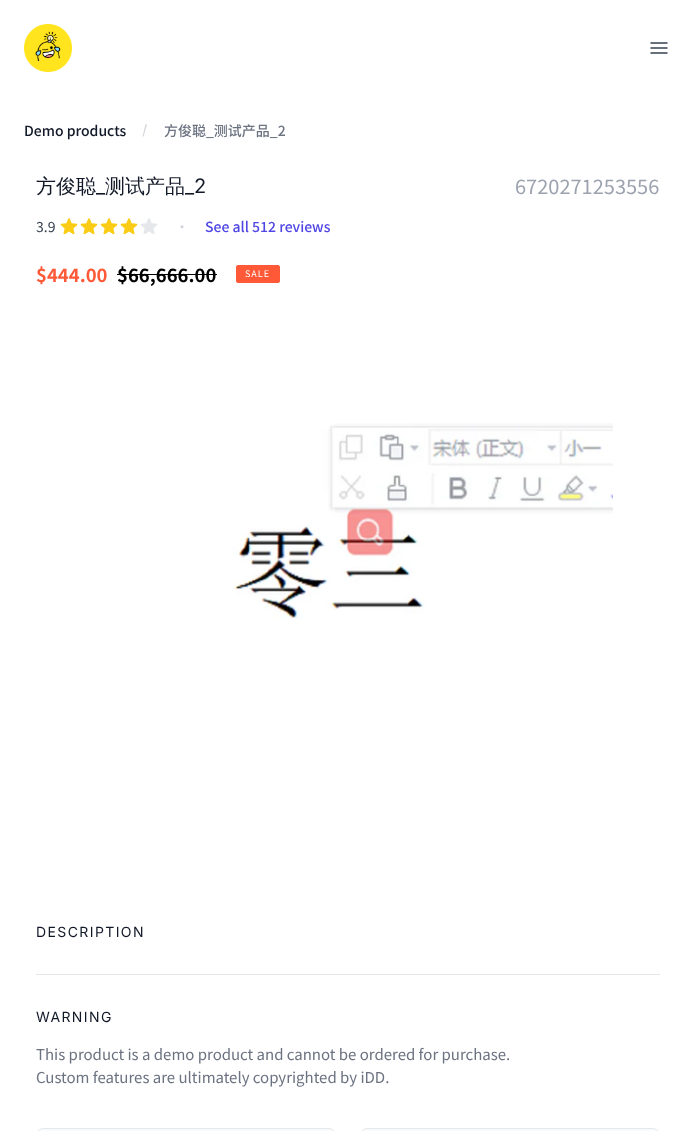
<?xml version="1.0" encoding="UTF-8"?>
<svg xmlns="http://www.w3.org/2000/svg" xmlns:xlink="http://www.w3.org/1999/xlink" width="695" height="1131">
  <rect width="100%" height="100%" fill="#ffffff" />
  <image x="24" y="24" width="48" height="48" xlink:href="image1.png" />
  <path d="M 651 43 h 16 m -16 5 h 16 m -16 5 h 16" fill="none" stroke="#374151" stroke-width="1.5" stroke-linecap="round" stroke-linejoin="round" />
  <path d="M 147 124.5 h -1.5 l -3 12 h 1 z" fill="#d1d5db" />
  <image x="60" y="218" width="18" height="17" xlink:href="image2.png" />
  <image x="80" y="218" width="18" height="17" xlink:href="image2.png" />
  <image x="100" y="218" width="18" height="17" xlink:href="image2.png" />
  <image x="120" y="218" width="18" height="17" xlink:href="image2.png" />
  <image x="140" y="218" width="18" height="16" xlink:href="image3.png" />
  <rect x="117" y="274" width="100" height="1" fill="#000000" />
  <rect x="236.5" y="265.5" width="43" height="17" rx="1.5" fill="#ff5937" stroke="#ff5937" />
  <image x="232" y="423" width="381" height="196" xlink:href="image4.png" />
  <rect x="36" y="974" width="624" height="1" fill="#e5e7eb" />
  <rect x="36.5" y="1128.5" width="299" height="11" rx="7.5" fill="#f9fafb" stroke="#e5e7eb" />
  <rect x="360.5" y="1128.5" width="299" height="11" rx="7.5" fill="#f9fafb" stroke="#e5e7eb" />
  <text x="24" y="136" style="font-family: Noto Sans SC; font-size: 14px; font-weight: 500; fill: #111827">Demo products</text>
  <text x="164" y="136" style="font-family: Noto Sans SC; font-size: 14px; font-weight: 500; fill: #6b7280">方俊聪_测试产品_2</text>
  <text x="36" y="193" style="font-family: WenQuanYi Zen Hei; font-size: 20px; font-weight: 500; fill: #111827">方俊聪</text>
  <text x="96" y="193" style="font-family: Inter; font-size: 20px; fill: #111827">_</text>
  <text x="105" y="193" style="font-family: WenQuanYi Zen Hei; font-size: 20px; font-weight: 500; fill: #111827">测试产品</text>
  <text x="185" y="193" style="font-family: Inter; font-size: 20px; fill: #111827">_2</text>
  <text x="515" y="194" style="font-family: Noto Sans SC; font-size: 20px; fill: #9ca3af">6720271253556</text>
  <text x="36" y="232" style="font-family: Noto Sans SC; font-size: 14px; fill: #374151">3.9</text>
  <text x="175" y="232" style="font-family: Noto Sans SC; font-size: 14px; fill: #d1d5db">·</text>
  <text x="205" y="232" style="font-family: Noto Sans SC; font-size: 14px; font-weight: 500; fill: #4f46e5">See all 512 reviews</text>
  <text x="36" y="282" style="font-family: Noto Sans SC; font-size: 18.5px; font-weight: bold; fill: #ff5937">$444.00</text>
  <text x="117" y="282" style="font-family: Noto Sans SC; font-size: 18.5px; font-weight: bold; fill: #000000">$66,666.00</text>
  <text x="245" y="277" style="font-family: Noto Sans SC; font-size: 9px; letter-spacing: 1px; fill: #ffffff">SALE</text>
  <text x="36" y="937" style="font-family: Inter; font-size: 14px; letter-spacing: 1.4px; fill: #111827">DESCRIPTION</text>
  <text x="36" y="1022" style="font-family: Inter; font-size: 14px; letter-spacing: 1.4px; fill: #111827">WARNING</text>
  <text x="36" y="1060" style="font-family: Noto Sans SC; font-size: 15px; fill: #6b7280">This product is a demo product and cannot be ordered for purchase.</text>
  <text x="36" y="1083" style="font-family: Noto Sans SC; font-size: 15px; fill: #6b7280">Custom features are ultimately copyrighted by iDD.</text>
</svg>
